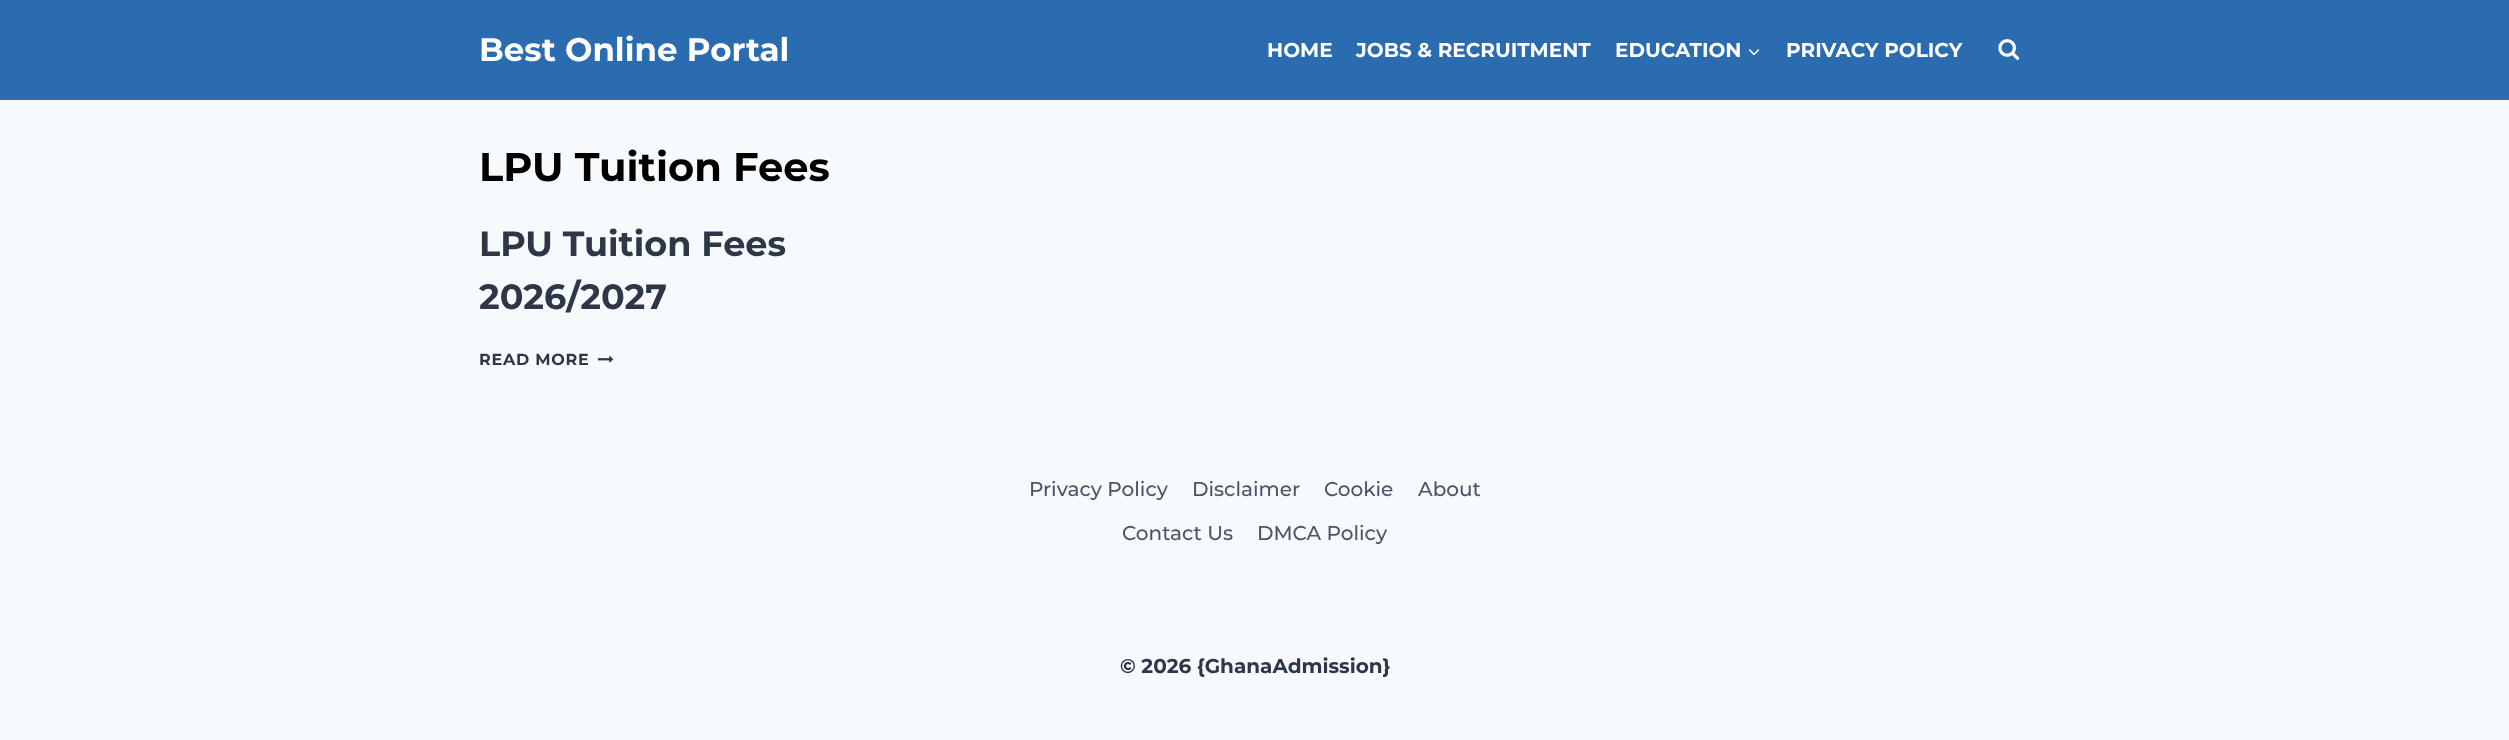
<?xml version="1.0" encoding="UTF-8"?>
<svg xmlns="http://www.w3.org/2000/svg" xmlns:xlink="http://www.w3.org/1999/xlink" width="2509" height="740">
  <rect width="100%" height="100%" fill="#f7fafc" />
  <rect width="2509" height="100" fill="#2b6cb0" />
  <image x="1748" y="49" width="12" height="7" xlink:href="image1.png" />
  <image x="1998" y="39" width="22" height="21" xlink:href="image2.png" />
  <image x="598" y="355" width="16" height="8" xlink:href="image3.png" />
  <text x="479" y="61" style="font-family: Montserrat; font-size: 32.5px; font-weight: bold; fill: #ffffff">Best Online Portal</text>
  <text x="1267" y="57" style="font-family: Montserrat; font-size: 20px; font-weight: bold; fill: #ffffff">HOME</text>
  <text x="1356" y="57" style="font-family: Montserrat; font-size: 20px; font-weight: bold; fill: #ffffff">JOBS &amp; RECRUITMENT</text>
  <text x="1615" y="57" style="font-family: Montserrat; font-size: 20px; font-weight: bold; fill: #ffffff">EDUCATION</text>
  <text x="1786" y="57" style="font-family: Montserrat; font-size: 20px; font-weight: bold; fill: #ffffff">PRIVACY POLICY</text>
  <text x="479" y="181" style="font-family: Montserrat; font-size: 40px; font-weight: bold; fill: #000000">LPU Tuition Fees</text>
  <text x="479" y="256" style="font-family: Montserrat; font-size: 35px; font-weight: bold; fill: #2d3748">LPU Tuition Fees</text>
  <text x="479" y="309" style="font-family: Montserrat; font-size: 35px; font-weight: bold; fill: #2d3748">2026/2027</text>
  <text x="479" y="365" style="font-family: Montserrat; font-size: 16px; font-weight: bold; letter-spacing: 0.75px; fill: #2d3748">READ MORE</text>
  <text x="1029" y="496" style="font-family: Montserrat; font-size: 20px; font-weight: 500; fill: #4a5568">Privacy Policy</text>
  <text x="1192" y="496" style="font-family: Montserrat; font-size: 20px; font-weight: 500; fill: #4a5568">Disclaimer</text>
  <text x="1324" y="496" style="font-family: Montserrat; font-size: 20px; font-weight: 500; fill: #4a5568">Cookie</text>
  <text x="1418" y="496" style="font-family: Montserrat; font-size: 20px; font-weight: 500; fill: #4a5568">About</text>
  <text x="1122" y="540" style="font-family: Montserrat; font-size: 20px; font-weight: 500; fill: #4a5568">Contact Us</text>
  <text x="1257" y="540" style="font-family: Montserrat; font-size: 20px; font-weight: 500; fill: #4a5568">DMCA Policy</text>
  <text x="1120" y="673" style="font-family: Montserrat; font-size: 20px; font-weight: bold; fill: #2d3748">© 2026 {GhanaAdmission}</text>
</svg>
